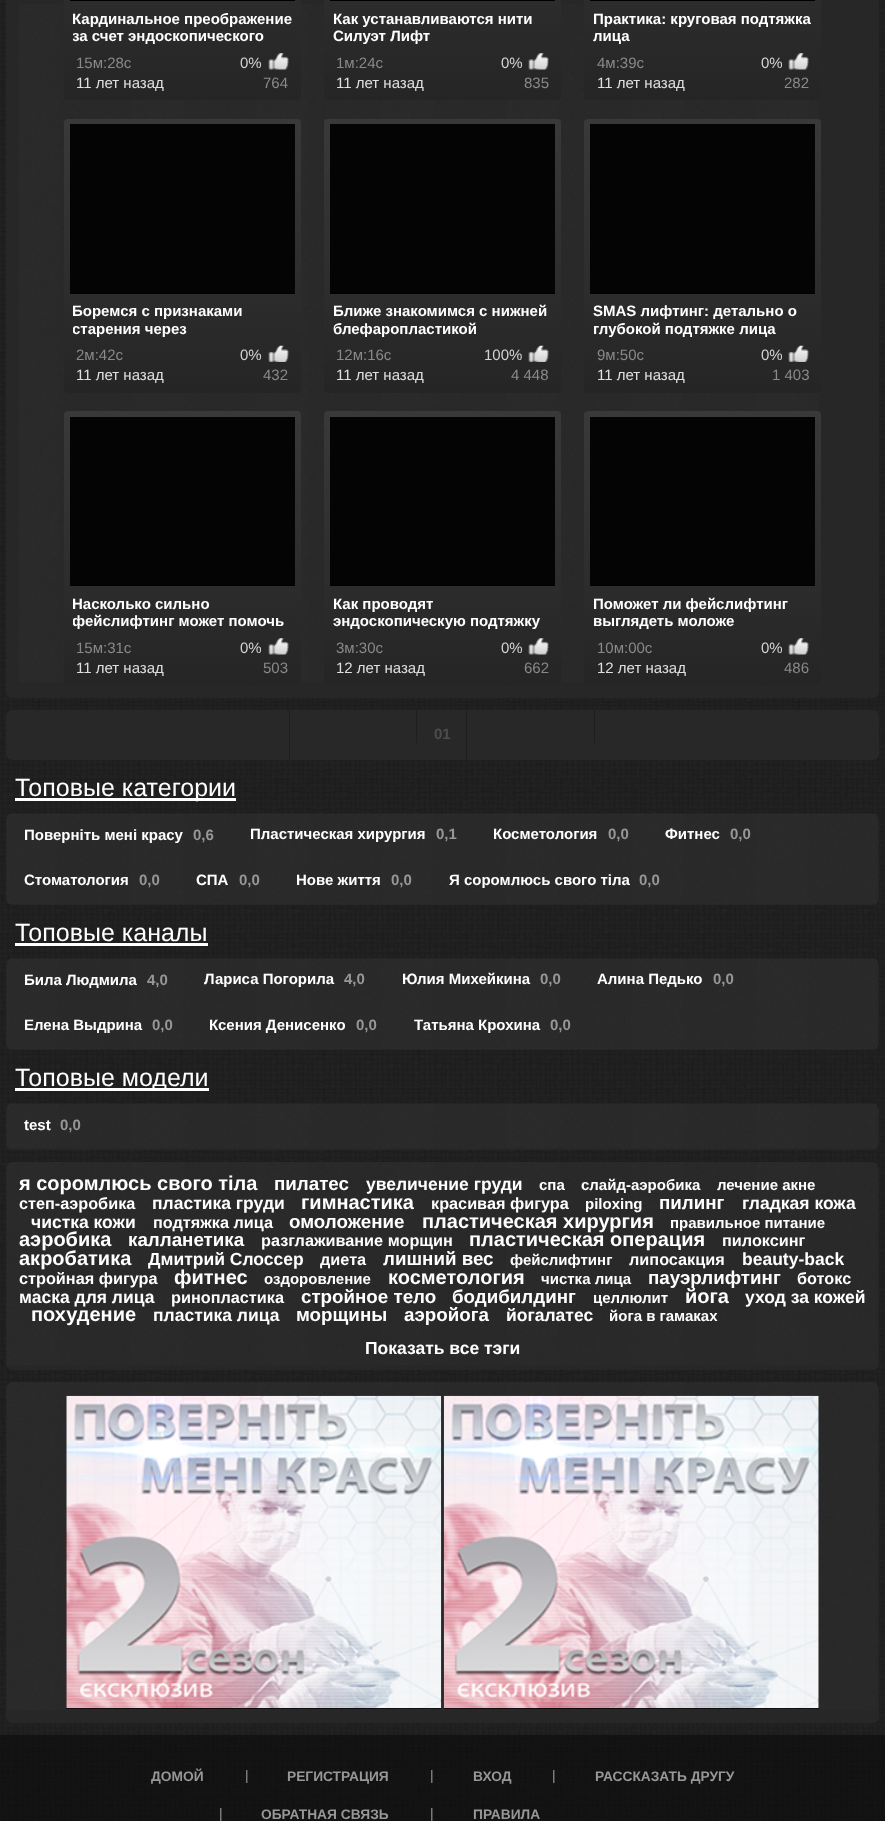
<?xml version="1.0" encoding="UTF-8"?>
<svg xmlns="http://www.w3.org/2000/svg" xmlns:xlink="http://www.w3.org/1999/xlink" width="885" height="1821">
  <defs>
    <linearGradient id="g1" gradientUnits="userSpaceOnUse" x1="183" y1="-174" x2="183" y2="100"><stop offset="0" stop-color="#393939" /><stop offset="1" stop-color="#252525" /></linearGradient>
    <linearGradient id="g2" gradientUnits="userSpaceOnUse" x1="443" y1="-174" x2="443" y2="100"><stop offset="0" stop-color="#393939" /><stop offset="1" stop-color="#252525" /></linearGradient>
    <linearGradient id="g3" gradientUnits="userSpaceOnUse" x1="703" y1="-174" x2="703" y2="100"><stop offset="0" stop-color="#393939" /><stop offset="1" stop-color="#252525" /></linearGradient>
    <linearGradient id="g4" gradientUnits="userSpaceOnUse" x1="183" y1="119" x2="183" y2="393"><stop offset="0" stop-color="#393939" /><stop offset="1" stop-color="#252525" /></linearGradient>
    <linearGradient id="g5" gradientUnits="userSpaceOnUse" x1="443" y1="119" x2="443" y2="393"><stop offset="0" stop-color="#393939" /><stop offset="1" stop-color="#252525" /></linearGradient>
    <linearGradient id="g6" gradientUnits="userSpaceOnUse" x1="703" y1="119" x2="703" y2="393"><stop offset="0" stop-color="#393939" /><stop offset="1" stop-color="#252525" /></linearGradient>
    <linearGradient id="g7" gradientUnits="userSpaceOnUse" x1="183" y1="411" x2="183" y2="685"><stop offset="0" stop-color="#393939" /><stop offset="1" stop-color="#252525" /></linearGradient>
    <linearGradient id="g8" gradientUnits="userSpaceOnUse" x1="443" y1="411" x2="443" y2="685"><stop offset="0" stop-color="#393939" /><stop offset="1" stop-color="#252525" /></linearGradient>
    <linearGradient id="g9" gradientUnits="userSpaceOnUse" x1="703" y1="411" x2="703" y2="685"><stop offset="0" stop-color="#393939" /><stop offset="1" stop-color="#252525" /></linearGradient>
    <clipPath id="clip1"><rect x="73" y="10" width="220" height="35" /></clipPath>
    <clipPath id="clip2"><rect x="73" y="303" width="220" height="35" /></clipPath>
    <clipPath id="clip3"><rect x="73" y="595" width="220" height="35" /></clipPath>
  </defs>
  <rect width="100%" height="100%" fill="#ffffff" />
  <image x="0" y="0" width="885" height="1821" xlink:href="image1.png" />
  <rect x="6" y="-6" width="873" height="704" rx="6" fill="#272727" />
  <image x="19" y="4" width="800" height="678" xlink:href="image2.png" />
  <rect x="64" y="-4" width="237" height="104" rx="4" fill="url(#g1)" />
  <rect x="70" width="225" height="1" fill="#000000" />
  <image x="268" y="53" width="21" height="17" xlink:href="image3.png" />
  <rect x="324" y="-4" width="237" height="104" rx="4" fill="url(#g2)" />
  <rect x="330" width="225" height="1" fill="#000000" />
  <image x="528" y="53" width="21" height="17" xlink:href="image3.png" />
  <rect x="584" y="-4" width="237" height="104" rx="4" fill="url(#g3)" />
  <rect x="590" width="225" height="1" fill="#000000" />
  <image x="788" y="53" width="21" height="17" xlink:href="image3.png" />
  <rect x="64" y="119" width="237" height="274" rx="4" fill="url(#g4)" />
  <rect x="70" y="293" width="225" height="1" fill="#000000" />
  <rect x="70" y="124" width="225" height="169" fill="#050404" />
  <image x="268" y="345" width="21" height="17" xlink:href="image4.png" />
  <rect x="324" y="119" width="237" height="274" rx="4" fill="url(#g5)" />
  <rect x="330" y="293" width="225" height="1" fill="#000000" />
  <rect x="330" y="124" width="225" height="169" fill="#050404" />
  <image x="528" y="345" width="21" height="17" xlink:href="image4.png" />
  <rect x="584" y="119" width="237" height="274" rx="4" fill="url(#g6)" />
  <rect x="590" y="293" width="225" height="1" fill="#000000" />
  <rect x="590" y="124" width="225" height="169" fill="#050404" />
  <image x="788" y="345" width="21" height="17" xlink:href="image4.png" />
  <rect x="64" y="411" width="237" height="274" rx="4" fill="url(#g7)" />
  <rect x="70" y="585" width="225" height="1" fill="#000000" />
  <rect x="70" y="417" width="225" height="168" fill="#050404" />
  <image x="268" y="638" width="21" height="17" xlink:href="image3.png" />
  <rect x="324" y="411" width="237" height="274" rx="4" fill="url(#g8)" />
  <rect x="330" y="585" width="225" height="1" fill="#000000" />
  <rect x="330" y="417" width="225" height="168" fill="#050404" />
  <image x="528" y="638" width="21" height="17" xlink:href="image3.png" />
  <rect x="584" y="411" width="237" height="274" rx="4" fill="url(#g9)" />
  <rect x="590" y="585" width="225" height="1" fill="#000000" />
  <rect x="590" y="417" width="225" height="168" fill="#050404" />
  <image x="788" y="638" width="21" height="17" xlink:href="image3.png" />
  <rect x="6" y="710" width="873" height="50" rx="6" fill="#282828" />
  <rect x="289" y="710" width="1" height="50" fill="#1e1e1e" />
  <rect x="416" y="710" width="1" height="33" fill="#1e1e1e" />
  <rect x="466" y="710" width="1" height="50" fill="#1e1e1e" />
  <rect x="594" y="710" width="1" height="33" fill="#1e1e1e" />
  <rect x="15" y="798" width="221" height="3" fill="#ffffff" />
  <rect x="6" y="814" width="873" height="91" rx="6" fill="#272727" />
  <image x="7" y="813" width="870" height="91" xlink:href="image5.png" />
  <rect x="15" y="943" width="193" height="3" fill="#ffffff" />
  <rect x="6" y="959" width="873" height="91" rx="6" fill="#272727" />
  <image x="7" y="958" width="870" height="91" xlink:href="image6.png" />
  <rect x="15" y="1088" width="194" height="3" fill="#ffffff" />
  <rect x="6" y="1104" width="873" height="46" rx="6" fill="#272727" />
  <image x="7" y="1103" width="870" height="45" xlink:href="image7.png" />
  <rect x="6" y="1163" width="873" height="207" rx="6" fill="#272727" />
  <image x="7" y="1162" width="870" height="203" xlink:href="image8.png" />
  <rect x="6" y="1383" width="873" height="340" rx="6" fill="#272727" />
  <image x="7" y="1382" width="870" height="328" xlink:href="image9.png" />
  <rect x="66" y="1396" width="375" height="313" fill="#000000" />
  <image x="66" y="1395" width="376" height="314" xlink:href="image10.png" />
  <rect x="444" y="1396" width="375" height="313" fill="#000000" />
  <image x="443" y="1395" width="376" height="314" xlink:href="image11.png" />
  <rect y="1735" width="885" height="86" fill="#000000" fill-opacity="0.4" />
  <text x="72" y="24" style="font-family: Liberation Sans; font-size: 15px; font-weight: bold; fill: #ffffff">Кардинальное преображение</text>
  <g clip-path="url(#clip1)">
    <text x="72" y="41" style="font-family: Liberation Sans; font-size: 15px; font-weight: bold; fill: #ffffff">за счет эндоскопического</text>
  </g>
  <text x="76" y="68" style="font-family: Liberation Sans; font-size: 15px; fill: #8a8a8a">15м:28с</text>
  <text x="240" y="68" style="font-family: Liberation Sans; font-size: 15px; fill: #d4d4d4">0%</text>
  <text x="76" y="88" style="font-family: Liberation Sans; font-size: 15px; fill: #e0e0e0">11 лет назад</text>
  <text x="263" y="88" style="font-family: Liberation Sans; font-size: 15px; fill: #8a8a8a">764</text>
  <text x="333" y="24" style="font-family: Liberation Sans; font-size: 15px; font-weight: bold; fill: #ffffff">Как устанавливаются нити</text>
  <text x="333" y="41" style="font-family: Liberation Sans; font-size: 15px; font-weight: bold; fill: #ffffff">Силуэт Лифт</text>
  <text x="336" y="68" style="font-family: Liberation Sans; font-size: 15px; fill: #8a8a8a">1м:24с</text>
  <text x="501" y="68" style="font-family: Liberation Sans; font-size: 15px; fill: #d4d4d4">0%</text>
  <text x="336" y="88" style="font-family: Liberation Sans; font-size: 15px; fill: #e0e0e0">11 лет назад</text>
  <text x="524" y="88" style="font-family: Liberation Sans; font-size: 15px; fill: #8a8a8a">835</text>
  <text x="593" y="24" style="font-family: Liberation Sans; font-size: 15px; font-weight: bold; fill: #ffffff">Практика: круговая подтяжка</text>
  <text x="593" y="41" style="font-family: Liberation Sans; font-size: 15px; font-weight: bold; fill: #ffffff">лица</text>
  <text x="597" y="68" style="font-family: Liberation Sans; font-size: 15px; fill: #8a8a8a">4м:39с</text>
  <text x="761" y="68" style="font-family: Liberation Sans; font-size: 15px; fill: #d4d4d4">0%</text>
  <text x="597" y="88" style="font-family: Liberation Sans; font-size: 15px; fill: #e0e0e0">11 лет назад</text>
  <text x="784" y="88" style="font-family: Liberation Sans; font-size: 15px; fill: #8a8a8a">282</text>
  <text x="72" y="316" style="font-family: Liberation Sans; font-size: 15px; font-weight: bold; fill: #ffffff">Боремся с признаками</text>
  <g clip-path="url(#clip2)">
    <text x="72" y="334" style="font-family: Liberation Sans; font-size: 15px; font-weight: bold; fill: #ffffff">старения через</text>
  </g>
  <text x="76" y="360" style="font-family: Liberation Sans; font-size: 15px; fill: #8a8a8a">2м:42с</text>
  <text x="240" y="360" style="font-family: Liberation Sans; font-size: 15px; fill: #d4d4d4">0%</text>
  <text x="76" y="380" style="font-family: Liberation Sans; font-size: 15px; fill: #e0e0e0">11 лет назад</text>
  <text x="263" y="380" style="font-family: Liberation Sans; font-size: 15px; fill: #8a8a8a">432</text>
  <text x="333" y="316" style="font-family: Liberation Sans; font-size: 15px; font-weight: bold; fill: #ffffff">Ближе знакомимся с нижней</text>
  <text x="333" y="334" style="font-family: Liberation Sans; font-size: 15px; font-weight: bold; fill: #ffffff">блефаропластикой</text>
  <text x="336" y="360" style="font-family: Liberation Sans; font-size: 15px; fill: #8a8a8a">12м:16с</text>
  <text x="484" y="360" style="font-family: Liberation Sans; font-size: 15px; fill: #d4d4d4">100%</text>
  <text x="336" y="380" style="font-family: Liberation Sans; font-size: 15px; fill: #e0e0e0">11 лет назад</text>
  <text x="511" y="380" style="font-family: Liberation Sans; font-size: 15px; fill: #8a8a8a">4 448</text>
  <text x="593" y="316" style="font-family: Liberation Sans; font-size: 15px; font-weight: bold; fill: #ffffff">SMAS лифтинг: детально о</text>
  <text x="593" y="334" style="font-family: Liberation Sans; font-size: 15px; font-weight: bold; fill: #ffffff">глубокой подтяжке лица</text>
  <text x="597" y="360" style="font-family: Liberation Sans; font-size: 15px; fill: #8a8a8a">9м:50с</text>
  <text x="761" y="360" style="font-family: Liberation Sans; font-size: 15px; fill: #d4d4d4">0%</text>
  <text x="597" y="380" style="font-family: Liberation Sans; font-size: 15px; fill: #e0e0e0">11 лет назад</text>
  <text x="772" y="380" style="font-family: Liberation Sans; font-size: 15px; fill: #8a8a8a">1 403</text>
  <text x="72" y="609" style="font-family: Liberation Sans; font-size: 15px; font-weight: bold; fill: #ffffff">Насколько сильно</text>
  <g clip-path="url(#clip3)">
    <text x="72" y="626" style="font-family: Liberation Sans; font-size: 15px; font-weight: bold; fill: #ffffff">фейслифтинг может помочь</text>
  </g>
  <text x="76" y="653" style="font-family: Liberation Sans; font-size: 15px; fill: #8a8a8a">15м:31с</text>
  <text x="240" y="653" style="font-family: Liberation Sans; font-size: 15px; fill: #d4d4d4">0%</text>
  <text x="76" y="673" style="font-family: Liberation Sans; font-size: 15px; fill: #e0e0e0">11 лет назад</text>
  <text x="263" y="673" style="font-family: Liberation Sans; font-size: 15px; fill: #8a8a8a">503</text>
  <text x="333" y="609" style="font-family: Liberation Sans; font-size: 15px; font-weight: bold; fill: #ffffff">Как проводят</text>
  <text x="333" y="626" style="font-family: Liberation Sans; font-size: 15px; font-weight: bold; fill: #ffffff">эндоскопическую подтяжку</text>
  <text x="336" y="653" style="font-family: Liberation Sans; font-size: 15px; fill: #8a8a8a">3м:30с</text>
  <text x="501" y="653" style="font-family: Liberation Sans; font-size: 15px; fill: #d4d4d4">0%</text>
  <text x="336" y="673" style="font-family: Liberation Sans; font-size: 15px; fill: #e0e0e0">12 лет назад</text>
  <text x="524" y="673" style="font-family: Liberation Sans; font-size: 15px; fill: #8a8a8a">662</text>
  <text x="593" y="609" style="font-family: Liberation Sans; font-size: 15px; font-weight: bold; fill: #ffffff">Поможет ли фейслифтинг</text>
  <text x="593" y="626" style="font-family: Liberation Sans; font-size: 15px; font-weight: bold; fill: #ffffff">выглядеть моложе</text>
  <text x="597" y="653" style="font-family: Liberation Sans; font-size: 15px; fill: #8a8a8a">10м:00с</text>
  <text x="761" y="653" style="font-family: Liberation Sans; font-size: 15px; fill: #d4d4d4">0%</text>
  <text x="597" y="673" style="font-family: Liberation Sans; font-size: 15px; fill: #e0e0e0">12 лет назад</text>
  <text x="784" y="673" style="font-family: Liberation Sans; font-size: 15px; fill: #8a8a8a">486</text>
  <text x="434" y="739" style="font-family: Liberation Sans; font-size: 15px; font-weight: bold; fill: #4d4d4d">01</text>
  <text x="15" y="796" style="font-family: Liberation Sans; font-size: 25px; fill: #ffffff">Топовые категории</text>
  <text x="24" y="840" style="font-family: Liberation Sans; font-size: 15px; font-weight: bold; fill: #ffffff">Повернiть менi красу</text>
  <text x="193" y="840" style="font-family: Liberation Sans; font-size: 15px; font-weight: bold; fill: #979797">0,6</text>
  <text x="250" y="839" style="font-family: Liberation Sans; font-size: 15px; font-weight: bold; fill: #ffffff">Пластическая хирургия</text>
  <text x="436" y="839" style="font-family: Liberation Sans; font-size: 15px; font-weight: bold; fill: #979797">0,1</text>
  <text x="493" y="839" style="font-family: Liberation Sans; font-size: 15px; font-weight: bold; fill: #ffffff">Косметология</text>
  <text x="608" y="839" style="font-family: Liberation Sans; font-size: 15px; font-weight: bold; fill: #979797">0,0</text>
  <text x="665" y="839" style="font-family: Liberation Sans; font-size: 15px; font-weight: bold; fill: #ffffff">Фитнес</text>
  <text x="730" y="839" style="font-family: Liberation Sans; font-size: 15px; font-weight: bold; fill: #979797">0,0</text>
  <text x="24" y="885" style="font-family: Liberation Sans; font-size: 15px; font-weight: bold; fill: #ffffff">Стоматология</text>
  <text x="139" y="885" style="font-family: Liberation Sans; font-size: 15px; font-weight: bold; fill: #979797">0,0</text>
  <text x="196" y="885" style="font-family: Liberation Sans; font-size: 15px; font-weight: bold; fill: #ffffff">СПА</text>
  <text x="239" y="885" style="font-family: Liberation Sans; font-size: 15px; font-weight: bold; fill: #979797">0,0</text>
  <text x="296" y="885" style="font-family: Liberation Sans; font-size: 15px; font-weight: bold; fill: #ffffff">Нове життя</text>
  <text x="391" y="885" style="font-family: Liberation Sans; font-size: 15px; font-weight: bold; fill: #979797">0,0</text>
  <text x="449" y="885" style="font-family: Liberation Sans; font-size: 15px; font-weight: bold; fill: #ffffff">Я соромлюсь свого тіла</text>
  <text x="639" y="885" style="font-family: Liberation Sans; font-size: 15px; font-weight: bold; fill: #979797">0,0</text>
  <text x="15" y="941" style="font-family: Liberation Sans; font-size: 25px; fill: #ffffff">Топовые каналы</text>
  <text x="24" y="985" style="font-family: Liberation Sans; font-size: 15px; font-weight: bold; fill: #ffffff">Била Людмила</text>
  <text x="147" y="985" style="font-family: Liberation Sans; font-size: 15px; font-weight: bold; fill: #979797">4,0</text>
  <text x="204" y="984" style="font-family: Liberation Sans; font-size: 15px; font-weight: bold; fill: #ffffff">Лариса Погорила</text>
  <text x="344" y="984" style="font-family: Liberation Sans; font-size: 15px; font-weight: bold; fill: #979797">4,0</text>
  <text x="402" y="984" style="font-family: Liberation Sans; font-size: 15px; font-weight: bold; fill: #ffffff">Юлия Михейкина</text>
  <text x="540" y="984" style="font-family: Liberation Sans; font-size: 15px; font-weight: bold; fill: #979797">0,0</text>
  <text x="597" y="984" style="font-family: Liberation Sans; font-size: 15px; font-weight: bold; fill: #ffffff">Алина Педько</text>
  <text x="713" y="984" style="font-family: Liberation Sans; font-size: 15px; font-weight: bold; fill: #979797">0,0</text>
  <text x="24" y="1030" style="font-family: Liberation Sans; font-size: 15px; font-weight: bold; fill: #ffffff">Елена Выдрина</text>
  <text x="152" y="1030" style="font-family: Liberation Sans; font-size: 15px; font-weight: bold; fill: #979797">0,0</text>
  <text x="209" y="1030" style="font-family: Liberation Sans; font-size: 15px; font-weight: bold; fill: #ffffff">Ксения Денисенко</text>
  <text x="356" y="1030" style="font-family: Liberation Sans; font-size: 15px; font-weight: bold; fill: #979797">0,0</text>
  <text x="414" y="1030" style="font-family: Liberation Sans; font-size: 15px; font-weight: bold; fill: #ffffff">Татьяна Крохина</text>
  <text x="550" y="1030" style="font-family: Liberation Sans; font-size: 15px; font-weight: bold; fill: #979797">0,0</text>
  <text x="15" y="1086" style="font-family: Liberation Sans; font-size: 25px; fill: #ffffff">Топовые модели</text>
  <text x="24" y="1130" style="font-family: Liberation Sans; font-size: 15px; font-weight: bold; fill: #ffffff">test</text>
  <text x="60" y="1130" style="font-family: Liberation Sans; font-size: 15px; font-weight: bold; fill: #979797">0,0</text>
  <text x="19" y="1190" style="font-family: Liberation Sans; font-size: 20px; font-weight: bold; fill: #ffffff">я соромлюсь свого тіла</text>
  <text x="274" y="1190" style="font-family: Liberation Sans; font-size: 18.75px; font-weight: bold; fill: #ffffff">пилатес</text>
  <text x="366" y="1190" style="font-family: Liberation Sans; font-size: 17.5px; font-weight: bold; fill: #ffffff">увеличение груди</text>
  <text x="539" y="1190" style="font-family: Liberation Sans; font-size: 15px; font-weight: bold; fill: #ffffff">спа</text>
  <text x="581" y="1190" style="font-family: Liberation Sans; font-size: 15px; font-weight: bold; fill: #ffffff">слайд-аэробика</text>
  <text x="717" y="1190" style="font-family: Liberation Sans; font-size: 15px; font-weight: bold; fill: #ffffff">лечение акне</text>
  <text x="19" y="1209" style="font-family: Liberation Sans; font-size: 16.25px; font-weight: bold; fill: #ffffff">степ-аэробика</text>
  <text x="152" y="1209" style="font-family: Liberation Sans; font-size: 17.5px; font-weight: bold; fill: #ffffff">пластика груди</text>
  <text x="301" y="1209" style="font-family: Liberation Sans; font-size: 20px; font-weight: bold; fill: #ffffff">гимнастика</text>
  <text x="431" y="1209" style="font-family: Liberation Sans; font-size: 16.25px; font-weight: bold; fill: #ffffff">красивая фигура</text>
  <text x="585" y="1209" style="font-family: Liberation Sans; font-size: 15px; font-weight: bold; fill: #ffffff">piloxing</text>
  <text x="659" y="1209" style="font-family: Liberation Sans; font-size: 18.75px; font-weight: bold; fill: #ffffff">пилинг</text>
  <text x="742" y="1209" style="font-family: Liberation Sans; font-size: 17.5px; font-weight: bold; fill: #ffffff">гладкая кожа</text>
  <text x="31" y="1228" style="font-family: Liberation Sans; font-size: 17.5px; font-weight: bold; fill: #ffffff">чистка кожи</text>
  <text x="153" y="1228" style="font-family: Liberation Sans; font-size: 16.25px; font-weight: bold; fill: #ffffff">подтяжка лица</text>
  <text x="289" y="1228" style="font-family: Liberation Sans; font-size: 18.75px; font-weight: bold; fill: #ffffff">омоложение</text>
  <text x="422" y="1228" style="font-family: Liberation Sans; font-size: 20px; font-weight: bold; fill: #ffffff">пластическая хирургия</text>
  <text x="670" y="1228" style="font-family: Liberation Sans; font-size: 15px; font-weight: bold; fill: #ffffff">правильное питание</text>
  <text x="19" y="1246" style="font-family: Liberation Sans; font-size: 20px; font-weight: bold; fill: #ffffff">аэробика</text>
  <text x="128" y="1246" style="font-family: Liberation Sans; font-size: 18.75px; font-weight: bold; fill: #ffffff">калланетика</text>
  <text x="261" y="1246" style="font-family: Liberation Sans; font-size: 16.25px; font-weight: bold; fill: #ffffff">разглаживание морщин</text>
  <text x="469" y="1246" style="font-family: Liberation Sans; font-size: 20px; font-weight: bold; fill: #ffffff">пластическая операция</text>
  <text x="722" y="1246" style="font-family: Liberation Sans; font-size: 16.25px; font-weight: bold; fill: #ffffff">пилоксинг</text>
  <text x="19" y="1265" style="font-family: Liberation Sans; font-size: 20px; font-weight: bold; fill: #ffffff">акробатика</text>
  <text x="148" y="1265" style="font-family: Liberation Sans; font-size: 17.5px; font-weight: bold; fill: #ffffff">Дмитрий Слоссер</text>
  <text x="320" y="1265" style="font-family: Liberation Sans; font-size: 16.25px; font-weight: bold; fill: #ffffff">диета</text>
  <text x="383" y="1265" style="font-family: Liberation Sans; font-size: 18.75px; font-weight: bold; fill: #ffffff">лишний вес</text>
  <text x="510" y="1265" style="font-family: Liberation Sans; font-size: 15px; font-weight: bold; fill: #ffffff">фейслифтинг</text>
  <text x="629" y="1265" style="font-family: Liberation Sans; font-size: 16.25px; font-weight: bold; fill: #ffffff">липосакция</text>
  <text x="742" y="1265" style="font-family: Liberation Sans; font-size: 17.5px; font-weight: bold; fill: #ffffff">beauty-back</text>
  <text x="19" y="1284" style="font-family: Liberation Sans; font-size: 16.25px; font-weight: bold; fill: #ffffff">стройная фигура</text>
  <text x="174" y="1284" style="font-family: Liberation Sans; font-size: 20px; font-weight: bold; fill: #ffffff">фитнес</text>
  <text x="264" y="1284" style="font-family: Liberation Sans; font-size: 15px; font-weight: bold; fill: #ffffff">оздоровление</text>
  <text x="388" y="1284" style="font-family: Liberation Sans; font-size: 20px; font-weight: bold; fill: #ffffff">косметология</text>
  <text x="541" y="1284" style="font-family: Liberation Sans; font-size: 15px; font-weight: bold; fill: #ffffff">чистка лица</text>
  <text x="648" y="1284" style="font-family: Liberation Sans; font-size: 18.75px; font-weight: bold; fill: #ffffff">пауэрлифтинг</text>
  <text x="797" y="1284" style="font-family: Liberation Sans; font-size: 16.25px; font-weight: bold; fill: #ffffff">ботокс</text>
  <text x="19" y="1303" style="font-family: Liberation Sans; font-size: 17.5px; font-weight: bold; fill: #ffffff">маска для лица</text>
  <text x="171" y="1303" style="font-family: Liberation Sans; font-size: 16.25px; font-weight: bold; fill: #ffffff">ринопластика</text>
  <text x="301" y="1303" style="font-family: Liberation Sans; font-size: 18.75px; font-weight: bold; fill: #ffffff">стройное тело</text>
  <text x="452" y="1303" style="font-family: Liberation Sans; font-size: 18.75px; font-weight: bold; fill: #ffffff">бодибилдинг</text>
  <text x="593" y="1303" style="font-family: Liberation Sans; font-size: 15px; font-weight: bold; fill: #ffffff">целлюлит</text>
  <text x="685" y="1303" style="font-family: Liberation Sans; font-size: 20px; font-weight: bold; fill: #ffffff">йога</text>
  <text x="745" y="1303" style="font-family: Liberation Sans; font-size: 17.5px; font-weight: bold; fill: #ffffff">уход за кожей</text>
  <text x="31" y="1321" style="font-family: Liberation Sans; font-size: 20px; font-weight: bold; fill: #ffffff">похудение</text>
  <text x="153" y="1321" style="font-family: Liberation Sans; font-size: 17.5px; font-weight: bold; fill: #ffffff">пластика лица</text>
  <text x="296" y="1321" style="font-family: Liberation Sans; font-size: 18.75px; font-weight: bold; fill: #ffffff">морщины</text>
  <text x="404" y="1321" style="font-family: Liberation Sans; font-size: 18.75px; font-weight: bold; fill: #ffffff">аэройога</text>
  <text x="506" y="1321" style="font-family: Liberation Sans; font-size: 17.5px; font-weight: bold; fill: #ffffff">йогалатес</text>
  <text x="609" y="1321" style="font-family: Liberation Sans; font-size: 15px; font-weight: bold; fill: #ffffff">йога в гамаках</text>
  <text x="365" y="1354" style="font-family: Liberation Sans; font-size: 17.5px; font-weight: bold; fill: #ffffff">Показать все тэги</text>
  <text x="151" y="1781" style="font-family: Liberation Sans; font-size: 13.75px; font-weight: bold; fill: #979797">ДОМОЙ</text>
  <text x="245" y="1780" style="font-family: Liberation Sans; font-size: 13.75px; fill: #979797">|</text>
  <text x="287" y="1781" style="font-family: Liberation Sans; font-size: 13.75px; font-weight: bold; fill: #979797">РЕГИСТРАЦИЯ</text>
  <text x="430" y="1780" style="font-family: Liberation Sans; font-size: 13.75px; fill: #979797">|</text>
  <text x="473" y="1781" style="font-family: Liberation Sans; font-size: 13.75px; font-weight: bold; fill: #979797">ВХОД</text>
  <text x="552" y="1780" style="font-family: Liberation Sans; font-size: 13.75px; fill: #979797">|</text>
  <text x="595" y="1781" style="font-family: Liberation Sans; font-size: 13.75px; font-weight: bold; fill: #979797">РАССКАЗАТЬ ДРУГУ</text>
  <text x="219" y="1818" style="font-family: Liberation Sans; font-size: 13.75px; fill: #979797">|</text>
  <text x="261" y="1819" style="font-family: Liberation Sans; font-size: 13.75px; font-weight: bold; fill: #979797">ОБРАТНАЯ СВЯЗЬ</text>
  <text x="430" y="1818" style="font-family: Liberation Sans; font-size: 13.75px; fill: #979797">|</text>
  <text x="473" y="1819" style="font-family: Liberation Sans; font-size: 13.75px; font-weight: bold; fill: #979797">ПРАВИЛА</text>
</svg>
